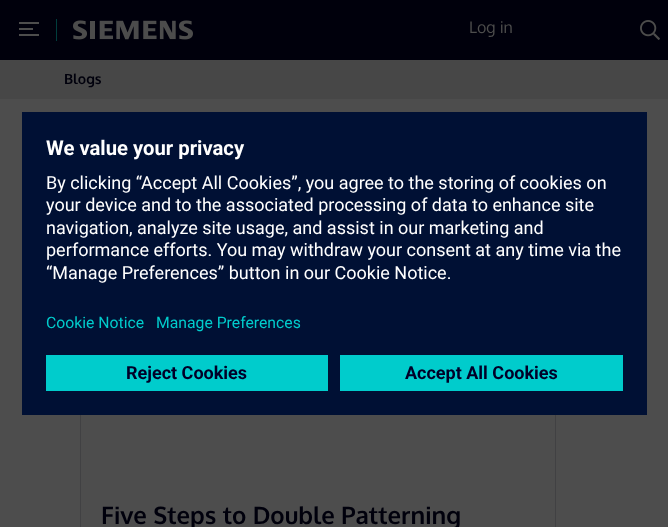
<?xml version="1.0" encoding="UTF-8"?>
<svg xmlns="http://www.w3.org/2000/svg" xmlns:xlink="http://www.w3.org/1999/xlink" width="668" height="527">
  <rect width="100%" height="100%" fill="#4d4d4d" />
  <rect width="668" height="60" fill="#00000c" />
  <rect x="19" y="28" width="14" height="2" fill="#4d4d4d" />
  <rect x="19" y="22" width="20" height="2" fill="#4d4d4d" />
  <rect x="19" y="34" width="20" height="2" fill="#4d4d4d" />
  <rect x="56" y="19" width="1" height="22" fill="#003d3d" />
  <image x="73" y="20" width="120" height="20" xlink:href="image1.png" />
  <image x="640" y="20" width="20" height="20" xlink:href="image2.png" />
  <rect y="60" width="668" height="39" fill="#474747" />
  <rect x="80.5" y="256.5" width="475" height="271" fill="none" stroke="#414143" />
  <rect x="22" y="112" width="625" height="303" fill="#001034" />
  <rect x="46" y="355" width="282" height="36" fill="#00cccc" />
  <rect x="340" y="355" width="283" height="36" fill="#00cccc" />
  <text x="469" y="33" style="font-family: Oxygen; font-size: 16px; fill: #4d4d4d">Log in</text>
  <text x="64" y="84" style="font-family: Oxygen; font-size: 14px; font-weight: bold; fill: #00000c">Blogs</text>
  <text x="101" y="524" style="font-family: Oxygen; font-size: 24px; font-weight: bold; fill: #00000c">Five Steps to Double Patterning</text>
  <text x="46" y="155" style="font-family: Roboto; font-size: 20.25px; font-weight: bold; fill: #ffffff">We value your privacy</text>
  <text x="46" y="189" style="font-family: Roboto; font-size: 18px; fill: #ffffff">By clicking “Accept All Cookies”, you agree to the storing of cookies on</text>
  <text x="46" y="211" style="font-family: Roboto; font-size: 18px; fill: #ffffff">your device and to the associated processing of data to enhance site</text>
  <text x="46" y="234" style="font-family: Roboto; font-size: 18px; fill: #ffffff">navigation, analyze site usage, and assist in our marketing and</text>
  <text x="46" y="256" style="font-family: Roboto; font-size: 18px; fill: #ffffff">performance efforts. You may withdraw your consent at any time via the</text>
  <text x="46" y="279" style="font-family: Roboto; font-size: 18px; fill: #ffffff">“Manage Preferences” button in our Cookie Notice.</text>
  <text x="46" y="328" style="font-family: Roboto; font-size: 15.75px; fill: #00cccc">Cookie Notice</text>
  <text x="156" y="328" style="font-family: Roboto; font-size: 15.75px; fill: #00cccc">Manage Preferences</text>
  <text x="126" y="379" style="font-family: Roboto; font-size: 18px; font-weight: bold; fill: #000028">Reject Cookies</text>
  <text x="405" y="379" style="font-family: Roboto; font-size: 18px; font-weight: bold; fill: #000028">Accept All Cookies</text>
</svg>
